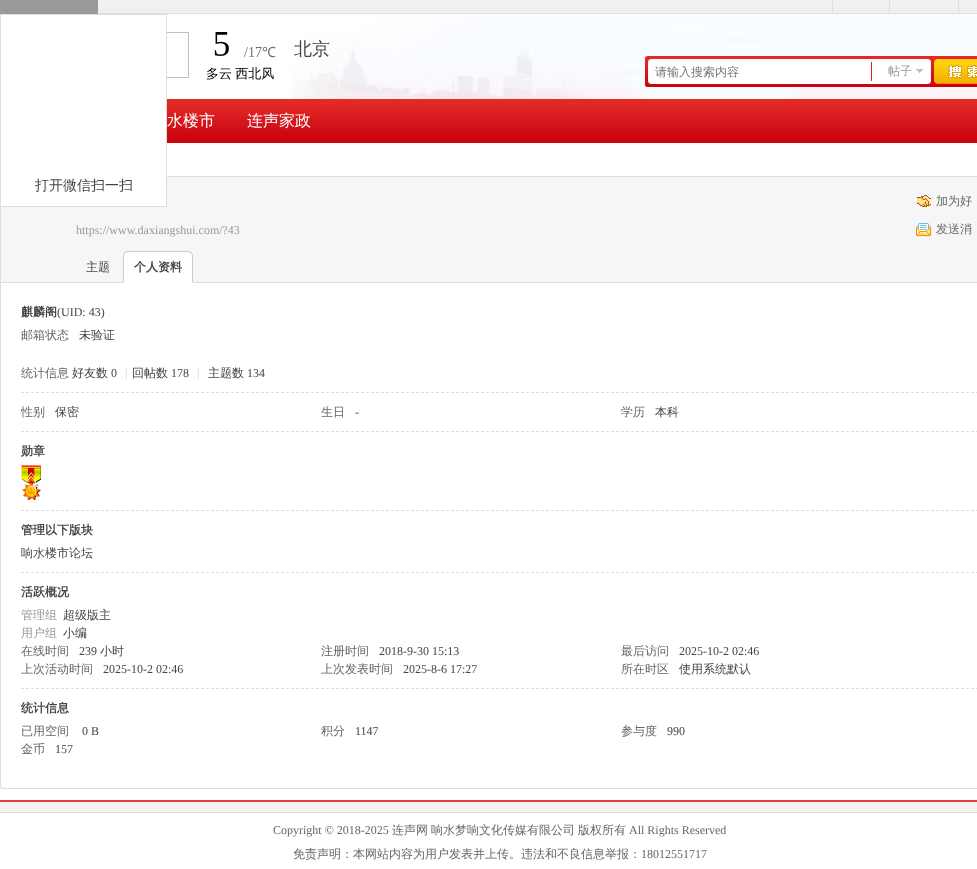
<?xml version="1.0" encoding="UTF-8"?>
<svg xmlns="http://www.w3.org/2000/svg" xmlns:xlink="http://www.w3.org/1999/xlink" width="977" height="869">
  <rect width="100%" height="100%" fill="#ffffff" />
  <image x="291" y="14" width="686" height="85" xlink:href="image1.png" />
  <image x="167" y="32" width="163" height="48" xlink:href="image2.png" />
  <image x="645" y="56" width="332" height="31" xlink:href="image3.png" />
  <image x="916" y="69" width="7" height="4" xlink:href="image4.png" />
  <image x="167" y="99" width="810" height="44" xlink:href="image5.png" />
  <image x="98" y="0" width="879" height="14" xlink:href="image6.png" />
  <rect width="98" height="14" fill="#999999" />
  <rect x="889" width="1" height="14" fill="#dddddd" />
  <rect x="832" width="1" height="14" fill="#dddddd" />
  <rect x="958" width="1" height="14" fill="#dddddd" />
  <rect x="1" y="177" width="976" height="105" fill="#f6f6f6" />
  <path d="M 3 176 h 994 c 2 0 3 1 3 3 v 104 h -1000 v -104 c 0 -2 1 -3 3 -3 z m 0 1 h 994 c 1 0 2 1 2 2 v 104 h -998 v -104 c 0 -1 1 -2 2 -2 z" fill="#dddddd" fill-rule="evenodd" />
  <rect x="1" y="176" width="165" height="30" fill="#ffffff" />
  <rect x="0.5" y="14.5" width="166" height="192" fill="none" stroke="#dddddd" />
  <image x="917" y="195" width="14" height="12" xlink:href="image7.png" />
  <image x="916" y="223" width="16" height="14" xlink:href="image8.png" />
  <rect x="1" y="282" width="976" height="1" fill="#dddddd" />
  <path d="M 128 251 h 60 c 3 0 5 2 5 5 v 27 h -70 v -27 c 0 -3 2 -5 5 -5 z" fill="#ffffff" />
  <path d="M 128 251 c -2 0 -3 1 -4 1 l 1 1 l 3 -1 h 60 l 3 1 l 1 -1 c -1 0 -2 -1 -4 -1 z" fill="#cccccc" />
  <path d="M 193 283 v -27 c 0 -1.5 -0.5 -3 -1.5 -3.5 l -0.5 0.5 c 0.5 1 1 2 1 3 v 26 z" fill="#cccccc" />
  <path d="M 193 283 l -1 -1 h -68 l -1 1 z" fill="#ffffff" />
  <path d="M 123 283 l 1 -1 v -26 c 0 -1 0.5 -2 1 -3 l -0.5 -0.5 c -1 0.5 -1.5 2 -1.5 3.5 z" fill="#cccccc" />
  <path d="M 0 283 h 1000 v 503 c 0 2 -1 3 -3 3 h -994 c -2 0 -3 -1 -3 -3 z m 1 0 h 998 v 503 c 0 1 -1 2 -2 2 h -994 c -1 0 -2 -1 -2 -2 z" fill="#dddddd" fill-rule="evenodd" />
  <path d="M 21 431.5 h 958" fill="none" stroke="#dddddd" stroke-dasharray="3 2" />
  <path d="M 21 392.5 h 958" fill="none" stroke="#dddddd" stroke-dasharray="3 2" />
  <path d="M 21 510.5 h 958" fill="none" stroke="#dddddd" stroke-dasharray="3 2" />
  <image x="21" y="465" width="20" height="35" xlink:href="image9.png" />
  <path d="M 21 572.5 h 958" fill="none" stroke="#dddddd" stroke-dasharray="3 2" />
  <path d="M 21 688.5 h 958" fill="none" stroke="#dddddd" stroke-dasharray="3 2" />
  <rect y="802" width="977" height="10" fill="#f3f3f3" />
  <rect y="800" width="977" height="2" fill="#e33d3d" />
  <rect y="812" width="977" height="1" fill="#dddddd" />
  <text x="655" y="76" style="font-family: WenQuanYi Zen Hei; font-size: 12px; font-weight: 500; fill: #757575">请输入搜索内容</text>
  <text x="888" y="75" style="font-family: WenQuanYi Zen Hei; font-size: 12px; font-weight: 500; fill: #999999">帖子</text>
  <text x="167" y="126" style="font-family: WenQuanYi Zen Hei; font-size: 16px; font-weight: 500; fill: #ffffff">水楼市</text>
  <text x="247" y="126" style="font-family: WenQuanYi Zen Hei; font-size: 16px; font-weight: 500; fill: #ffffff">连声家政</text>
  <text x="35" y="190" style="font-family: WenQuanYi Zen Hei; font-size: 14px; font-weight: 500; fill: #444444">打开微信扫一扫</text>
  <text x="76" y="234" style="font-family: Liberation Serif; font-size: 12px; fill: #999999">https://www.daxiangshui.com/?43</text>
  <text x="936" y="205" style="font-family: WenQuanYi Zen Hei; font-size: 12px; font-weight: 500; fill: #666666">加为好</text>
  <text x="936" y="233" style="font-family: WenQuanYi Zen Hei; font-size: 12px; font-weight: 500; fill: #666666">发送消</text>
  <text x="86" y="271" style="font-family: WenQuanYi Zen Hei; font-size: 12px; font-weight: 500; fill: #444444">主题</text>
  <text x="134" y="271" style="font-family: WenQuanYi Zen Hei; font-size: 12px; font-weight: bold; fill: #444444">个人资料</text>
  <text x="21" y="316" style="font-family: WenQuanYi Zen Hei; font-size: 12px; font-weight: bold; fill: #444444">麒麟阁</text>
  <text x="57" y="316" style="font-family: Liberation Serif; font-size: 12px; fill: #444444">(UID: 43)</text>
  <text x="21" y="339" style="font-family: WenQuanYi Zen Hei; font-size: 12px; font-weight: 500; fill: #666666">邮箱状态</text>
  <text x="79" y="339" style="font-family: WenQuanYi Zen Hei; font-size: 12px; font-weight: 500; fill: #444444">未验证</text>
  <text x="21" y="377" style="font-family: WenQuanYi Zen Hei; font-size: 12px; font-weight: 500; fill: #666666">统计信息</text>
  <text x="72" y="377" style="font-family: WenQuanYi Zen Hei; font-size: 12px; font-weight: 500; fill: #444444">好友数</text>
  <text x="111" y="377" style="font-family: Liberation Serif; font-size: 12px; fill: #444444">0</text>
  <text x="125" y="377" style="font-family: Liberation Serif; font-size: 12px; fill: #cccccc">|</text>
  <text x="132" y="377" style="font-family: WenQuanYi Zen Hei; font-size: 12px; font-weight: 500; fill: #444444">回帖数</text>
  <text x="171" y="377" style="font-family: Liberation Serif; font-size: 12px; fill: #444444">178</text>
  <text x="197" y="377" style="font-family: Liberation Serif; font-size: 12px; fill: #cccccc">|</text>
  <text x="208" y="377" style="font-family: WenQuanYi Zen Hei; font-size: 12px; font-weight: 500; fill: #444444">主题数</text>
  <text x="247" y="377" style="font-family: Liberation Serif; font-size: 12px; fill: #444444">134</text>
  <text x="21" y="416" style="font-family: WenQuanYi Zen Hei; font-size: 12px; font-weight: 500; fill: #666666">性别</text>
  <text x="55" y="416" style="font-family: WenQuanYi Zen Hei; font-size: 12px; font-weight: 500; fill: #444444">保密</text>
  <text x="321" y="416" style="font-family: WenQuanYi Zen Hei; font-size: 12px; font-weight: 500; fill: #666666">生日</text>
  <text x="355" y="416" style="font-family: Liberation Serif; font-size: 12px; fill: #444444">-</text>
  <text x="621" y="416" style="font-family: WenQuanYi Zen Hei; font-size: 12px; font-weight: 500; fill: #666666">学历</text>
  <text x="655" y="416" style="font-family: WenQuanYi Zen Hei; font-size: 12px; font-weight: 500; fill: #444444">本科</text>
  <text x="21" y="455" style="font-family: WenQuanYi Zen Hei; font-size: 12px; font-weight: bold; fill: #444444">勋章</text>
  <text x="21" y="534" style="font-family: WenQuanYi Zen Hei; font-size: 12px; font-weight: bold; fill: #444444">管理以下版块</text>
  <text x="21" y="557" style="font-family: WenQuanYi Zen Hei; font-size: 12px; font-weight: 500; fill: #444444">响水楼市论坛</text>
  <text x="21" y="596" style="font-family: WenQuanYi Zen Hei; font-size: 12px; font-weight: bold; fill: #444444">活跃概况</text>
  <text x="21" y="619" style="font-family: WenQuanYi Zen Hei; font-size: 12px; font-weight: 500; fill: #999999">管理组</text>
  <text x="63" y="619" style="font-family: WenQuanYi Zen Hei; font-size: 12px; font-weight: 500; fill: #444444">超级版主</text>
  <text x="21" y="637" style="font-family: WenQuanYi Zen Hei; font-size: 12px; font-weight: 500; fill: #999999">用户组</text>
  <text x="63" y="637" style="font-family: WenQuanYi Zen Hei; font-size: 12px; font-weight: 500; fill: #444444">小编</text>
  <text x="21" y="655" style="font-family: WenQuanYi Zen Hei; font-size: 12px; font-weight: 500; fill: #666666">在线时间</text>
  <text x="79" y="655" style="font-family: Liberation Serif; font-size: 12px; fill: #444444">239</text>
  <text x="100" y="655" style="font-family: WenQuanYi Zen Hei; font-size: 12px; font-weight: 500; fill: #444444">小时</text>
  <text x="321" y="655" style="font-family: WenQuanYi Zen Hei; font-size: 12px; font-weight: 500; fill: #666666">注册时间</text>
  <text x="379" y="655" style="font-family: Liberation Serif; font-size: 12px; fill: #444444">2018-9-30 15:13</text>
  <text x="621" y="655" style="font-family: WenQuanYi Zen Hei; font-size: 12px; font-weight: 500; fill: #666666">最后访问</text>
  <text x="679" y="655" style="font-family: Liberation Serif; font-size: 12px; fill: #444444">2025-10-2 02:46</text>
  <text x="21" y="673" style="font-family: WenQuanYi Zen Hei; font-size: 12px; font-weight: 500; fill: #666666">上次活动时间</text>
  <text x="103" y="673" style="font-family: Liberation Serif; font-size: 12px; fill: #444444">2025-10-2 02:46</text>
  <text x="321" y="673" style="font-family: WenQuanYi Zen Hei; font-size: 12px; font-weight: 500; fill: #666666">上次发表时间</text>
  <text x="403" y="673" style="font-family: Liberation Serif; font-size: 12px; fill: #444444">2025-8-6 17:27</text>
  <text x="621" y="673" style="font-family: WenQuanYi Zen Hei; font-size: 12px; font-weight: 500; fill: #666666">所在时区</text>
  <text x="679" y="673" style="font-family: WenQuanYi Zen Hei; font-size: 12px; font-weight: 500; fill: #444444">使用系统默认</text>
  <text x="21" y="712" style="font-family: WenQuanYi Zen Hei; font-size: 12px; font-weight: bold; fill: #444444">统计信息</text>
  <text x="21" y="735" style="font-family: WenQuanYi Zen Hei; font-size: 12px; font-weight: 500; fill: #666666">已用空间</text>
  <text x="82" y="735" style="font-family: Liberation Serif; font-size: 12px; fill: #444444">0 B</text>
  <text x="321" y="735" style="font-family: WenQuanYi Zen Hei; font-size: 12px; font-weight: 500; fill: #666666">积分</text>
  <text x="355" y="735" style="font-family: Liberation Serif; font-size: 12px; fill: #444444">1147</text>
  <text x="621" y="735" style="font-family: WenQuanYi Zen Hei; font-size: 12px; font-weight: 500; fill: #666666">参与度</text>
  <text x="667" y="735" style="font-family: Liberation Serif; font-size: 12px; fill: #444444">990</text>
  <text x="21" y="753" style="font-family: WenQuanYi Zen Hei; font-size: 12px; font-weight: 500; fill: #666666">金币</text>
  <text x="55" y="753" style="font-family: Liberation Serif; font-size: 12px; fill: #444444">157</text>
  <text x="273" y="834" style="font-family: Liberation Serif; font-size: 12px; fill: #666666">Copyright © 2018-2025</text>
  <text x="392" y="834" style="font-family: WenQuanYi Zen Hei; font-size: 12px; font-weight: 500; fill: #666666">连声网</text>
  <text x="431" y="834" style="font-family: WenQuanYi Zen Hei; font-size: 12px; font-weight: 500; fill: #666666">响水梦响文化传媒有限公司</text>
  <text x="578" y="834" style="font-family: WenQuanYi Zen Hei; font-size: 12px; font-weight: 500; fill: #666666">版权所有</text>
  <text x="629" y="834" style="font-family: Liberation Serif; font-size: 12px; fill: #666666">All Rights Reserved</text>
  <text x="293" y="858" style="font-family: WenQuanYi Zen Hei; font-size: 12px; font-weight: 500; fill: #666666">免责声明：本网站内容为用户发表并上传。违法和不良信息举报：</text>
  <text x="641" y="858" style="font-family: Liberation Serif; font-size: 12px; fill: #666666">18012551717</text>
</svg>
